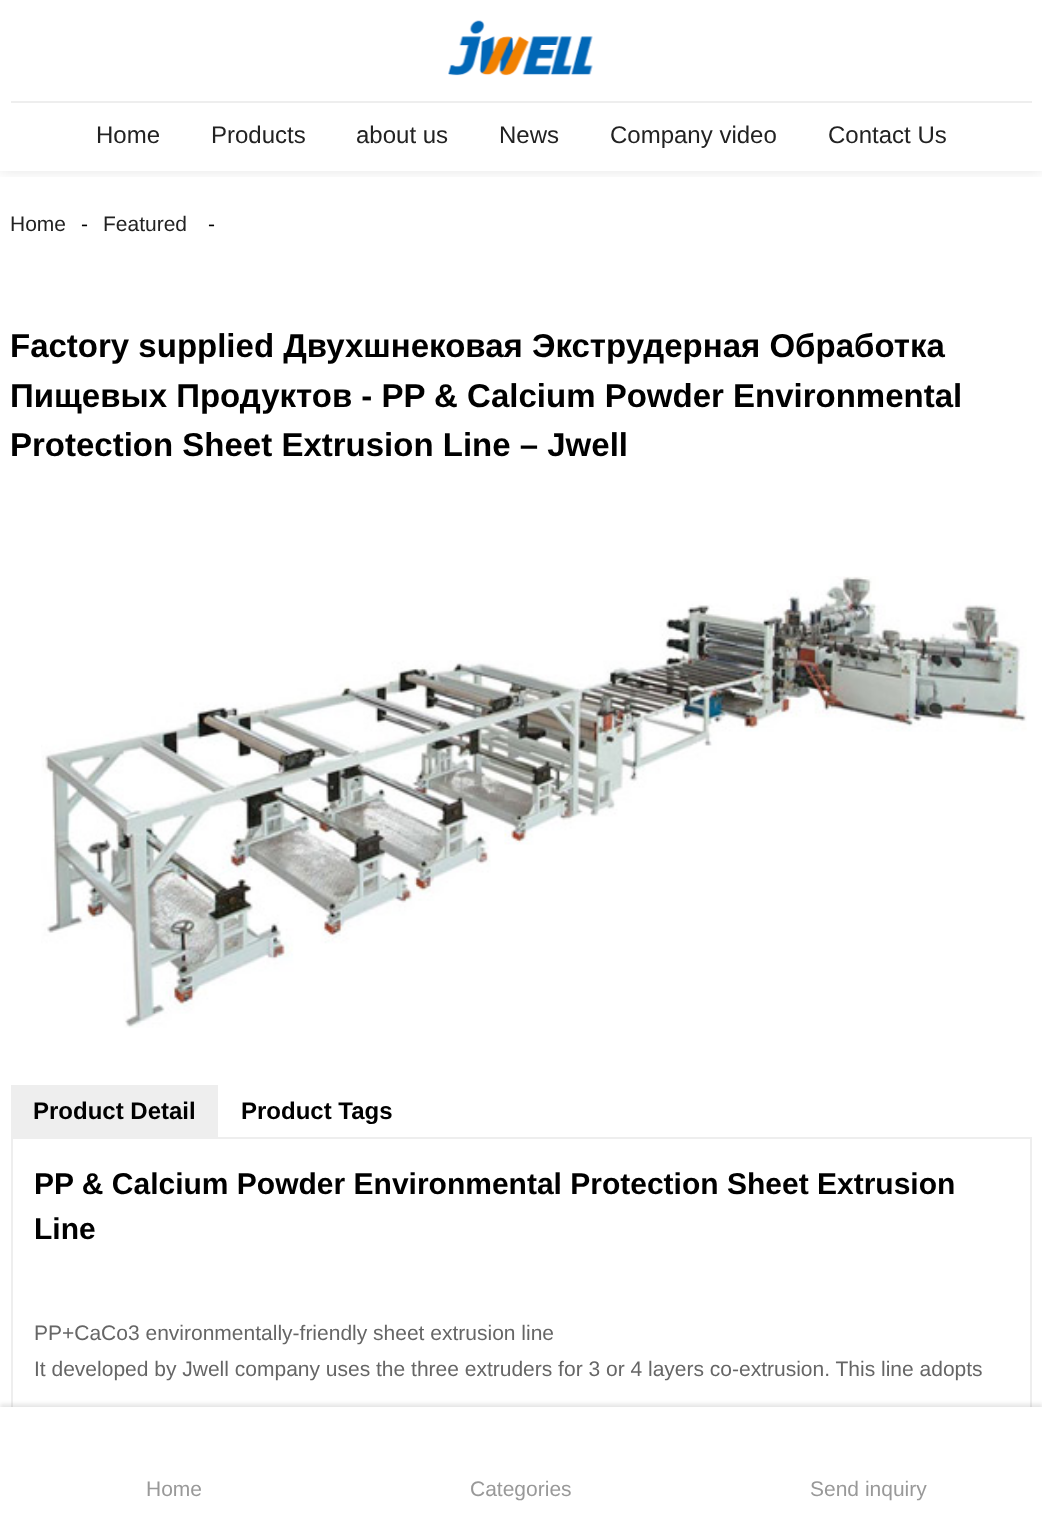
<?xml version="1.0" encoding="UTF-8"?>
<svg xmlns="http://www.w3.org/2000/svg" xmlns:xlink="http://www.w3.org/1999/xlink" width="1042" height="1513">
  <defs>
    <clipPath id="clip1"><rect x="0" y="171" width="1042" height="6" /></clipPath>
  </defs>
  <rect width="100%" height="100%" fill="#ffffff" />
  <g clip-path="url(#clip1)">
    <rect width="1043" height="171" fill="#000000" fill-opacity="0.1" filter="blur(7.5px)" />
  </g>
  <image x="448" y="20" width="145" height="56" xlink:href="image1.png" />
  <rect x="11" y="101" width="1021" height="2" fill="#eeeeee" />
  <image x="41" y="576" width="986" height="452" xlink:href="image2.png" />
  <rect x="11" y="1085" width="207" height="52" fill="#eeeeee" />
  <rect x="12" y="1138" width="1019" height="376" fill="none" stroke="#eeeeee" stroke-width="2" />
  <rect y="1404" width="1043" height="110" fill="#000000" fill-opacity="0.1" filter="blur(2px)" />
  <rect y="1407" width="1042" height="106" fill="#ffffff" />
  <text x="96" y="143" style="font-family: Liberation Sans; font-size: 24px; fill: #222222">Home</text>
  <text x="211" y="143" style="font-family: Liberation Sans; font-size: 24px; fill: #222222">Products</text>
  <text x="356" y="143" style="font-family: Liberation Sans; font-size: 24px; fill: #222222">about us</text>
  <text x="499" y="143" style="font-family: Liberation Sans; font-size: 24px; fill: #222222">News</text>
  <text x="610" y="143" style="font-family: Liberation Sans; font-size: 24px; fill: #222222">Company video</text>
  <text x="828" y="143" style="font-family: Liberation Sans; font-size: 24px; fill: #222222">Contact Us</text>
  <text x="10" y="231" style="font-family: Liberation Sans; font-size: 21px; fill: #222222">Home</text>
  <text x="81" y="231" style="font-family: Liberation Sans; font-size: 21px; fill: #000000">-</text>
  <text x="103" y="231" style="font-family: Liberation Sans; font-size: 21px; fill: #222222">Featured</text>
  <text x="208" y="231" style="font-family: Liberation Sans; font-size: 21px; fill: #000000">-</text>
  <text x="10" y="357" style="font-family: Liberation Sans; font-size: 33px; font-weight: bold; fill: #000000">Factory supplied Двухшнековая Экструдерная Обработка</text>
  <text x="10" y="407" style="font-family: Liberation Sans; font-size: 33px; font-weight: bold; fill: #000000">Пищевых Продуктов - PP &amp; Calcium Powder Environmental</text>
  <text x="10" y="456" style="font-family: Liberation Sans; font-size: 33px; font-weight: bold; fill: #000000">Protection Sheet Extrusion Line – Jwell</text>
  <text x="33" y="1119" style="font-family: Liberation Sans; font-size: 24px; font-weight: bold; fill: #000000">Product Detail</text>
  <text x="241" y="1119" style="font-family: Liberation Sans; font-size: 24px; font-weight: bold; fill: #000000">Product Tags</text>
  <text x="34" y="1194" style="font-family: Liberation Sans; font-size: 30px; font-weight: bold; fill: #000000">PP &amp; Calcium Powder Environmental Protection Sheet Extrusion</text>
  <text x="34" y="1239" style="font-family: Liberation Sans; font-size: 30px; font-weight: bold; fill: #000000">Line</text>
  <text x="34" y="1340" style="font-family: Liberation Sans; font-size: 21px; fill: #666666">PP+CaCo3 environmentally-friendly sheet extrusion line</text>
  <text x="34" y="1376" style="font-family: Liberation Sans; font-size: 21px; fill: #666666">It developed by Jwell company uses the three extruders for 3 or 4 layers co-extrusion. This line adopts</text>
  <text x="146" y="1496" style="font-family: Liberation Sans; font-size: 21px; fill: #999999">Home</text>
  <text x="470" y="1496" style="font-family: Liberation Sans; font-size: 21px; fill: #999999">Categories</text>
  <text x="810" y="1496" style="font-family: Liberation Sans; font-size: 21px; fill: #999999">Send inquiry</text>
</svg>
